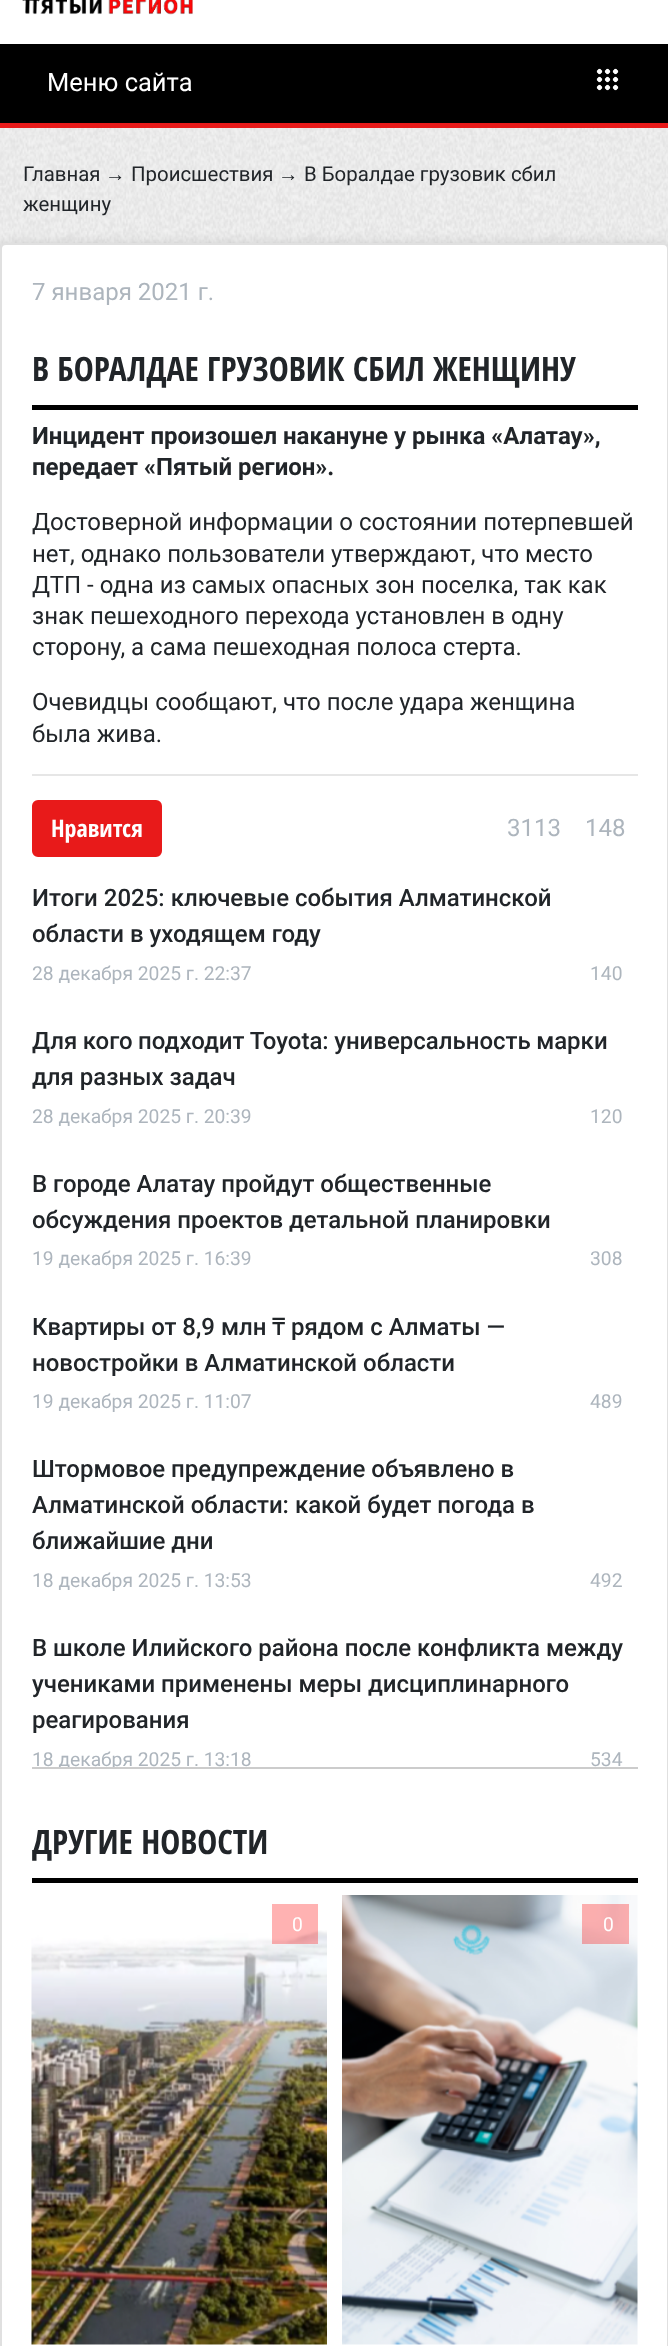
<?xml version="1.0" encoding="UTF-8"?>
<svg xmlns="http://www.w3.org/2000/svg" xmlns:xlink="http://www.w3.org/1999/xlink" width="668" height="2346">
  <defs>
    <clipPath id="clip1"><rect x="32" y="869" width="606" height="898" /></clipPath>
  </defs>
  <rect width="100%" height="100%" fill="#ffffff" />
  <image x="0" y="128" width="668" height="121" xlink:href="image1.png" />
  <image x="22" y="0" width="171" height="15" xlink:href="image2.png" />
  <rect y="44" width="668" height="79" fill="#000000" />
  <rect y="123" width="668" height="5" fill="#e81a1a" />
  <image x="596" y="68" width="23" height="23" xlink:href="image3.png" />
  <rect y="248" width="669" height="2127" rx="6" fill="#000000" fill-opacity="0.25" filter="blur(7.5px)" />
  <rect y="243" width="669" height="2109" rx="6" fill="#ffffff" />
  <rect x="1" y="244" width="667" height="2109" rx="5" fill="none" stroke="#000000" stroke-opacity="0.12" stroke-width="2" />
  <rect x="32" y="405" width="606" height="5" fill="#000000" />
  <rect x="32" y="774" width="606" height="2" fill="#e6e6e6" />
  <rect x="33" y="801" width="128" height="55" rx="5" fill="#e81a1a" stroke="#e81a1a" stroke-width="2" />
  <rect x="32" y="1767" width="606" height="2" fill="#cccccc" />
  <rect x="32" y="1878" width="606" height="5" fill="#000000" />
  <image x="31" y="1930" width="296" height="415" xlink:href="image4.png" />
  <rect x="272" y="1904" width="46" height="40" fill="#ff0000" fill-opacity="0.3" />
  <image x="342" y="1895" width="296" height="450" xlink:href="image5.png" />
  <rect x="582" y="1904" width="47" height="40" fill="#ff0000" fill-opacity="0.3" />
  <text x="47" y="91" style="font-family: Roboto; font-size: 25.5px; fill: #ffffff">Меню сайта</text>
  <text x="23" y="181" style="font-family: Roboto; font-size: 20.4px; fill: #212529">Главная</text>
  <text x="105" y="181" style="font-family: Liberation Sans; font-size: 20.4px; fill: #212529">→</text>
  <text x="131" y="181" style="font-family: Roboto; font-size: 20.4px; fill: #212529">Происшествия</text>
  <text x="278" y="181" style="font-family: Liberation Sans; font-size: 20.4px; fill: #212529">→</text>
  <text x="304" y="181" style="font-family: Roboto; font-size: 20.4px; fill: #212529">В Боралдае грузовик сбил</text>
  <text x="23" y="211" style="font-family: Roboto; font-size: 20.4px; fill: #212529">женщину</text>
  <text x="32" y="300" style="font-family: Roboto; font-size: 24px; fill: #adb5bd">7 января 2021 г.</text>
  <text x="32" y="381" style="font-family: Open Sans Condensed; font-size: 33.6px; font-weight: bold; fill: #212529">В БОРАЛДАЕ ГРУЗОВИК СБИЛ ЖЕНЩИНУ</text>
  <text x="32" y="444" style="font-family: Roboto; font-size: 24px; font-weight: bold; fill: #212529">Инцидент произошел накануне у рынка «Алатау»,</text>
  <text x="32" y="475" style="font-family: Roboto; font-size: 24px; font-weight: bold; fill: #212529">передает «Пятый регион».</text>
  <text x="32" y="530" style="font-family: Roboto; font-size: 24px; fill: #212529">Достоверной информации о состоянии потерпевшей</text>
  <text x="32" y="562" style="font-family: Roboto; font-size: 24px; fill: #212529">нет, однако пользователи утверждают, что место</text>
  <text x="32" y="593" style="font-family: Roboto; font-size: 24px; fill: #212529">ДТП - одна из самых опасных зон поселка, так как</text>
  <text x="32" y="624" style="font-family: Roboto; font-size: 24px; fill: #212529">знак пешеходного перехода установлен в одну</text>
  <text x="32" y="655" style="font-family: Roboto; font-size: 24px; fill: #212529">сторону, а сама пешеходная полоса стерта.</text>
  <text x="32" y="710" style="font-family: Roboto; font-size: 24px; fill: #212529">Очевидцы сообщают, что после удара женщина</text>
  <text x="32" y="742" style="font-family: Roboto; font-size: 24px; fill: #212529">была жива.</text>
  <text x="51" y="837" style="font-family: Open Sans Condensed; font-size: 24px; font-weight: bold; fill: #ffffff">Нравится</text>
  <text x="507" y="836" style="font-family: Roboto; font-size: 24px; fill: #adb5bd">3113</text>
  <text x="585" y="836" style="font-family: Roboto; font-size: 24px; fill: #adb5bd">148</text>
  <text x="32" y="906" style="font-family: Roboto; font-size: 24px; font-weight: 500; fill: #212529">Итоги 2025: ключевые события Алматинской</text>
  <text x="32" y="942" style="font-family: Roboto; font-size: 24px; font-weight: 500; fill: #212529">области в уходящем году</text>
  <text x="32" y="980" style="font-family: Roboto; font-size: 19.25px; fill: #adb5bd">28 декабря 2025 г. 22:37</text>
  <text x="590" y="980" style="font-family: Roboto; font-size: 19.25px; fill: #adb5bd">140</text>
  <text x="32" y="1049" word-spacing="-0.5" style="font-family: Roboto; font-size: 24px; font-weight: 500; fill: #212529">Для кого подходит Toyota: универсальность марки</text>
  <text x="32" y="1085" style="font-family: Roboto; font-size: 24px; font-weight: 500; fill: #212529">для разных задач</text>
  <text x="32" y="1123" style="font-family: Roboto; font-size: 19.25px; fill: #adb5bd">28 декабря 2025 г. 20:39</text>
  <text x="590" y="1123" style="font-family: Roboto; font-size: 19.25px; fill: #adb5bd">120</text>
  <text x="32" y="1192" style="font-family: Roboto; font-size: 24px; font-weight: 500; fill: #212529">В городе Алатау пройдут общественные</text>
  <text x="32" y="1228" style="font-family: Roboto; font-size: 24px; font-weight: 500; fill: #212529">обсуждения проектов детальной планировки</text>
  <text x="32" y="1265" style="font-family: Roboto; font-size: 19.25px; fill: #adb5bd">19 декабря 2025 г. 16:39</text>
  <text x="590" y="1265" style="font-family: Roboto; font-size: 19.25px; fill: #adb5bd">308</text>
  <text x="32" y="1335" style="font-family: Roboto; font-size: 24px; font-weight: 500; fill: #212529">Квартиры от 8,9 млн</text>
  <text x="272" y="1335" style="font-family: Noto Sans; font-size: 24px; font-weight: 500; fill: #212529">₸</text>
  <text x="291" y="1335" style="font-family: Roboto; font-size: 24px; font-weight: 500; fill: #212529">рядом с Алматы —</text>
  <text x="32" y="1371" style="font-family: Roboto; font-size: 24px; font-weight: 500; fill: #212529">новостройки в Алматинской области</text>
  <text x="32" y="1408" style="font-family: Roboto; font-size: 19.25px; fill: #adb5bd">19 декабря 2025 г. 11:07</text>
  <text x="590" y="1408" style="font-family: Roboto; font-size: 19.25px; fill: #adb5bd">489</text>
  <text x="32" y="1477" style="font-family: Roboto; font-size: 24px; font-weight: 500; fill: #212529">Штормовое предупреждение объявлено в</text>
  <text x="32" y="1513" style="font-family: Roboto; font-size: 24px; font-weight: 500; fill: #212529">Алматинской области: какой будет погода в</text>
  <text x="32" y="1549" style="font-family: Roboto; font-size: 24px; font-weight: 500; fill: #212529">ближайшие дни</text>
  <text x="32" y="1587" style="font-family: Roboto; font-size: 19.25px; fill: #adb5bd">18 декабря 2025 г. 13:53</text>
  <text x="590" y="1587" style="font-family: Roboto; font-size: 19.25px; fill: #adb5bd">492</text>
  <text x="32" y="1656" style="font-family: Roboto; font-size: 24px; font-weight: 500; fill: #212529">В школе Илийского района после конфликта между</text>
  <text x="32" y="1692" style="font-family: Roboto; font-size: 24px; font-weight: 500; fill: #212529">учениками применены меры дисциплинарного</text>
  <text x="32" y="1728" style="font-family: Roboto; font-size: 24px; font-weight: 500; fill: #212529">реагирования</text>
  <g clip-path="url(#clip1)">
    <text x="32" y="1766" style="font-family: Roboto; font-size: 19.25px; fill: #adb5bd">18 декабря 2025 г. 13:18</text>
  </g>
  <text x="590" y="1766" style="font-family: Roboto; font-size: 19.25px; fill: #adb5bd">534</text>
  <text x="32" y="1854" style="font-family: Open Sans Condensed; font-size: 33.6px; font-weight: bold; fill: #212529">ДРУГИЕ НОВОСТИ</text>
  <text x="292" y="1931" style="font-family: Roboto; font-size: 19.25px; fill: #ffffff">0</text>
  <text x="603" y="1931" style="font-family: Roboto; font-size: 19.25px; fill: #ffffff">0</text>
</svg>
